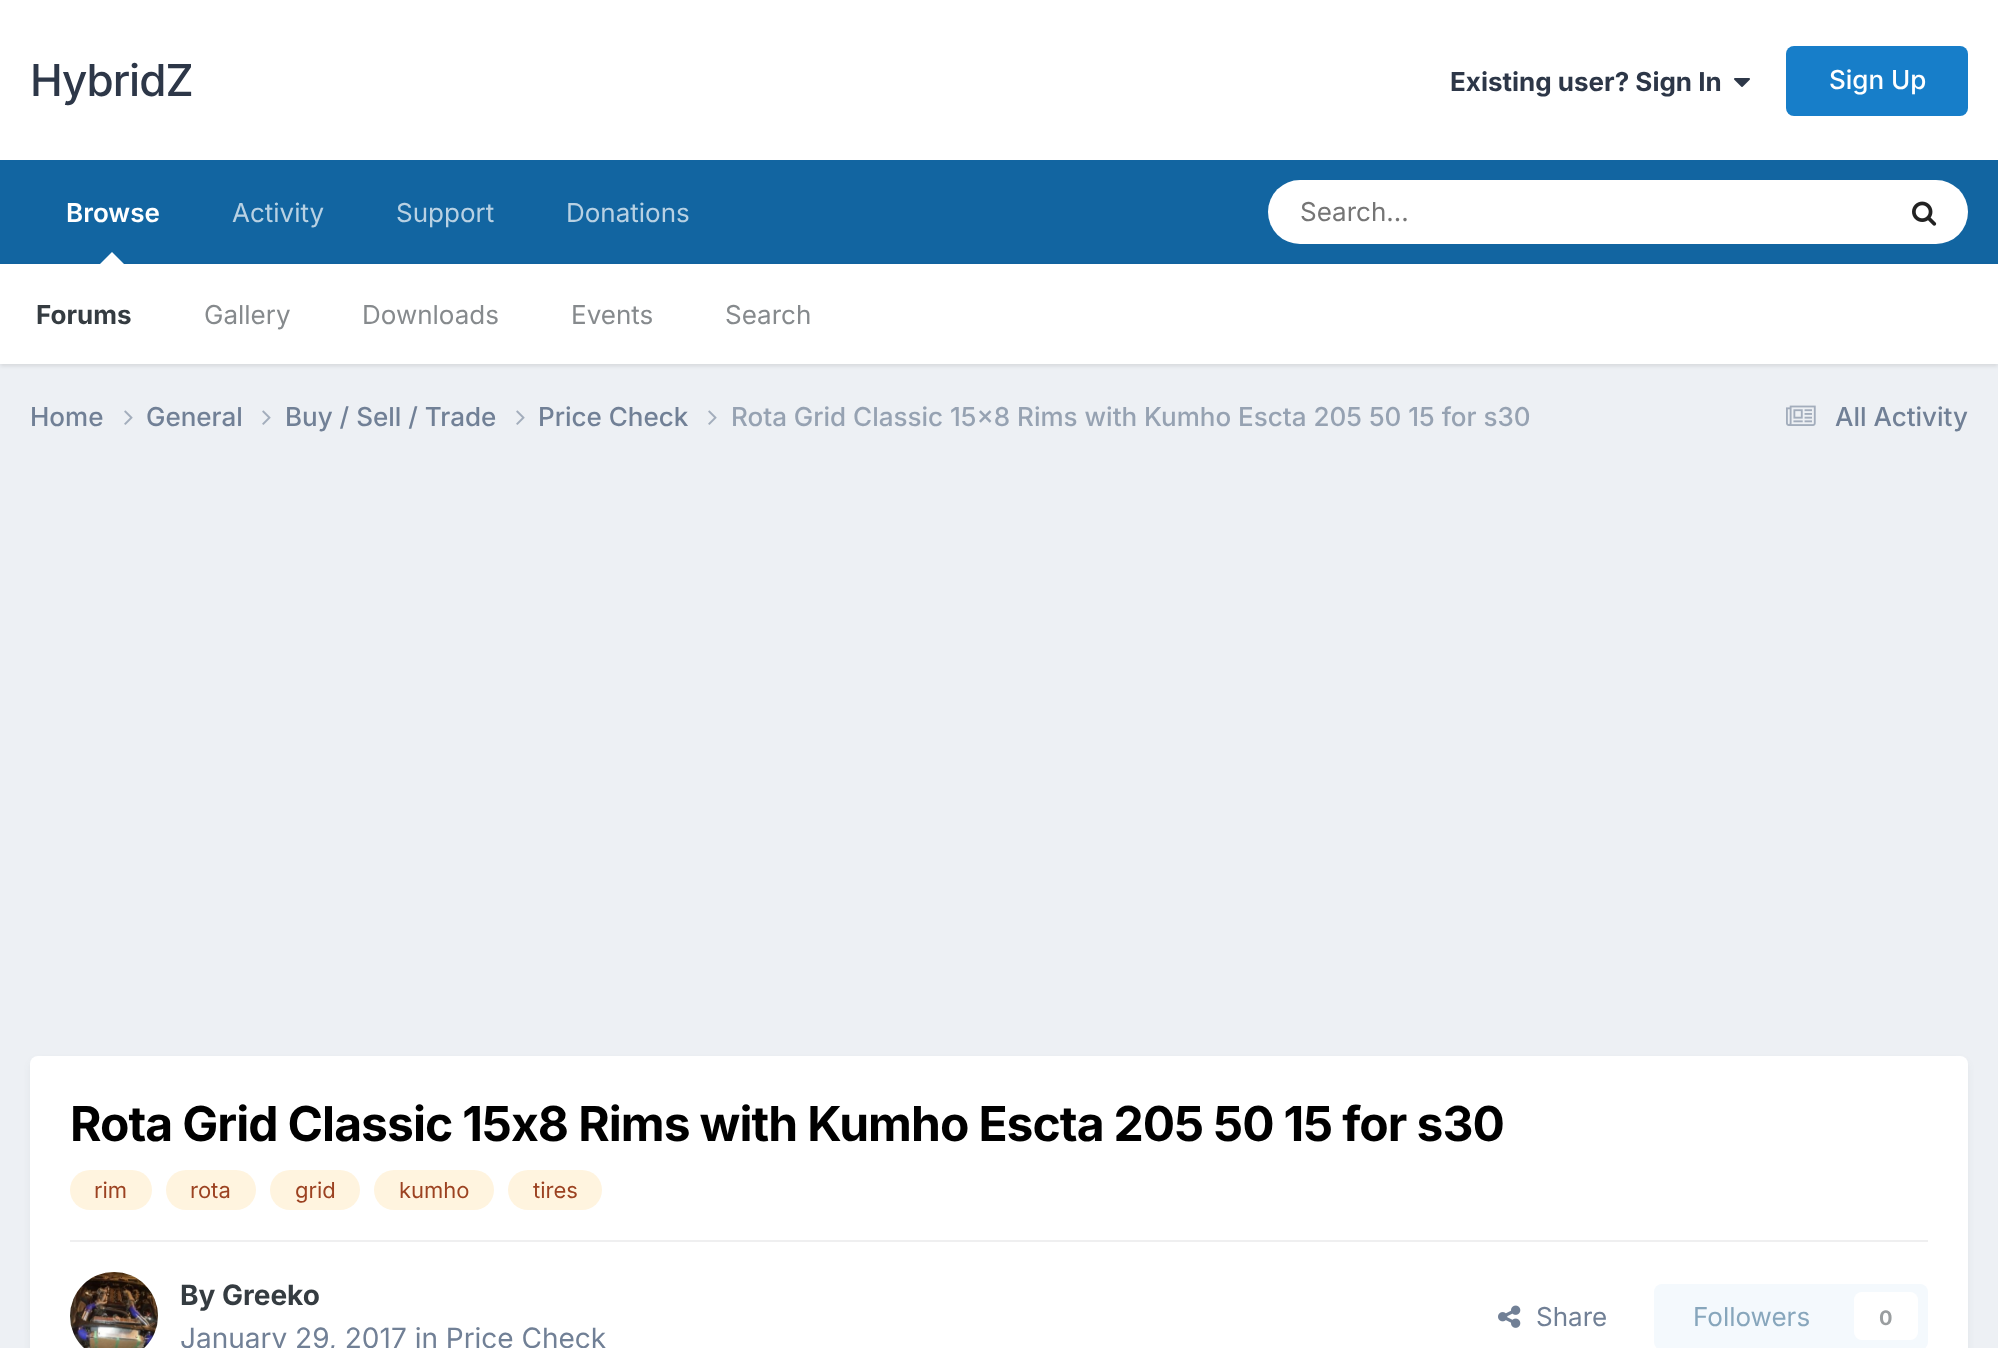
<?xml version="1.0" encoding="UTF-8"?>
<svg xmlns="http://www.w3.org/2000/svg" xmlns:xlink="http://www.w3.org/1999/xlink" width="1998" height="1348">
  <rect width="100%" height="100%" fill="#edf0f4" />
  <rect width="1998" height="160" fill="#ffffff" />
  <image x="1734" y="78" width="16" height="9" xlink:href="image1.png" />
  <rect x="1786" y="46" width="182" height="70" rx="8" fill="#177ec9" />
  <rect y="160" width="1998" height="104" fill="#1265a1" />
  <rect y="266" width="1998" height="100" fill="#000000" fill-opacity="0.1" filter="blur(2px)" />
  <path d="M 124 264 h -24 l 12 -12 z" fill="#ffffff" />
  <rect x="1268" y="180" width="700" height="64" rx="32" fill="#ffffff" />
  <image x="1912" y="201" width="25" height="25" xlink:href="image2.png" />
  <rect y="264" width="1998" height="100" fill="#ffffff" />
  <image x="124" y="410" width="9" height="15" xlink:href="image3.png" />
  <image x="262" y="410" width="9" height="15" xlink:href="image3.png" />
  <image x="516" y="410" width="9" height="15" xlink:href="image3.png" />
  <image x="708" y="410" width="9" height="15" xlink:href="image3.png" />
  <image x="1786" y="405" width="30" height="21" xlink:href="image4.png" />
  <rect x="32" y="1062" width="1934" height="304" rx="6" fill="#2d3748" fill-opacity="0.1" filter="blur(4px)" />
  <rect x="30" y="1056" width="1938" height="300" rx="8" fill="#ffffff" />
  <rect x="70" y="1170" width="82" height="40" rx="20" fill="#fff4df" />
  <rect x="166" y="1170" width="90" height="40" rx="20" fill="#fff4df" />
  <rect x="270" y="1170" width="90" height="40" rx="20" fill="#fff4df" />
  <rect x="374" y="1170" width="120" height="40" rx="20" fill="#fff4df" />
  <rect x="508" y="1170" width="94" height="40" rx="20" fill="#fff4df" />
  <rect x="70" y="1240" width="1858" height="2" fill="#efeff0" />
  <image x="70" y="1272" width="88" height="76" xlink:href="image5.png" />
  <image x="1498" y="1305" width="23" height="23" xlink:href="image6.png" />
  <rect x="1654" y="1284" width="274" height="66" rx="8" fill="#f4f9fd" />
  <rect x="1854" y="1292" width="64" height="48" rx="8" fill="#ffffff" />
  <text x="30" y="96" style="font-family: Inter; font-size: 44px; font-weight: 500; letter-spacing: -1px; fill: #2d3748">HybridZ</text>
  <text x="1450" y="91" style="font-family: Inter; font-size: 26px; font-weight: bold; fill: #2d3748">Existing user? Sign In</text>
  <text x="1829" y="89" style="font-family: Inter; font-size: 26px; font-weight: 500; fill: #ffffff">Sign Up</text>
  <text x="232" y="222" style="font-family: Inter; font-size: 26px; fill: #b8d1e3">Activity</text>
  <text x="396" y="222" style="font-family: Inter; font-size: 26px; fill: #b8d1e3">Support</text>
  <text x="566" y="222" style="font-family: Inter; font-size: 26px; fill: #b8d1e3">Donations</text>
  <text x="66" y="222" style="font-family: Inter; font-size: 26px; font-weight: 600; fill: #ffffff">Browse</text>
  <text x="36" y="324" style="font-family: Inter; font-size: 26px; font-weight: bold; fill: #353c41">Forums</text>
  <text x="204" y="324" style="font-family: Inter; font-size: 26px; fill: #868a8d">Gallery</text>
  <text x="362" y="324" style="font-family: Inter; font-size: 26px; fill: #868a8d">Downloads</text>
  <text x="571" y="324" style="font-family: Inter; font-size: 26px; fill: #868a8d">Events</text>
  <text x="725" y="324" style="font-family: Inter; font-size: 26px; fill: #868a8d">Search</text>
  <text x="1300" y="221" style="font-family: Inter; font-size: 26px; fill: #757575">Search...</text>
  <text x="30" y="426" style="font-family: Inter; font-size: 26px; font-weight: 500; fill: #718096">Home</text>
  <text x="146" y="426" style="font-family: Inter; font-size: 26px; font-weight: 500; fill: #718096">General</text>
  <text x="285" y="426" style="font-family: Inter; font-size: 26px; font-weight: 500; fill: #718096">Buy / Sell / Trade</text>
  <text x="538" y="426" style="font-family: Inter; font-size: 26px; font-weight: 500; fill: #718096">Price Check</text>
  <text x="731" y="426" style="font-family: Inter; font-size: 26px; font-weight: 500; fill: #96a2b2">Rota Grid Classic 15x8 Rims with Kumho Escta 205 50 15 for s30</text>
  <text x="1835" y="426" style="font-family: Inter; font-size: 26px; font-weight: 500; fill: #718096">All Activity</text>
  <text x="70" y="1141" word-spacing="-0.4" style="font-family: Inter; font-size: 48px; font-weight: bold; letter-spacing: -0.95px; fill: #000000">Rota Grid Classic 15x8 Rims with Kumho Escta 205 50 15 for s30</text>
  <text x="94" y="1198" style="font-family: Inter; font-size: 22px; fill: #9c4221">rim</text>
  <text x="190" y="1198" style="font-family: Inter; font-size: 22px; fill: #9c4221">rota</text>
  <text x="295" y="1198" style="font-family: Inter; font-size: 22px; fill: #9c4221">grid</text>
  <text x="399" y="1198" style="font-family: Inter; font-size: 22px; fill: #9c4221">kumho</text>
  <text x="533" y="1198" style="font-family: Inter; font-size: 22px; fill: #9c4221">tires</text>
  <text x="180" y="1305" style="font-family: Inter; font-size: 28px; font-weight: bold; fill: #353c41">By Greeko</text>
  <text x="180" y="1348" style="font-family: Inter; font-size: 28px; fill: #718096">January 29, 2017 in Price Check</text>
  <text x="1536" y="1326" style="font-family: Inter; font-size: 26px; fill: #718096">Share</text>
  <text x="1693" y="1326" style="font-family: Inter; font-size: 26px; fill: #87a6bc">Followers</text>
  <text x="1879" y="1325" style="font-family: Inter; font-size: 20px; font-weight: bold; fill: #9a9ea0">0</text>
</svg>
